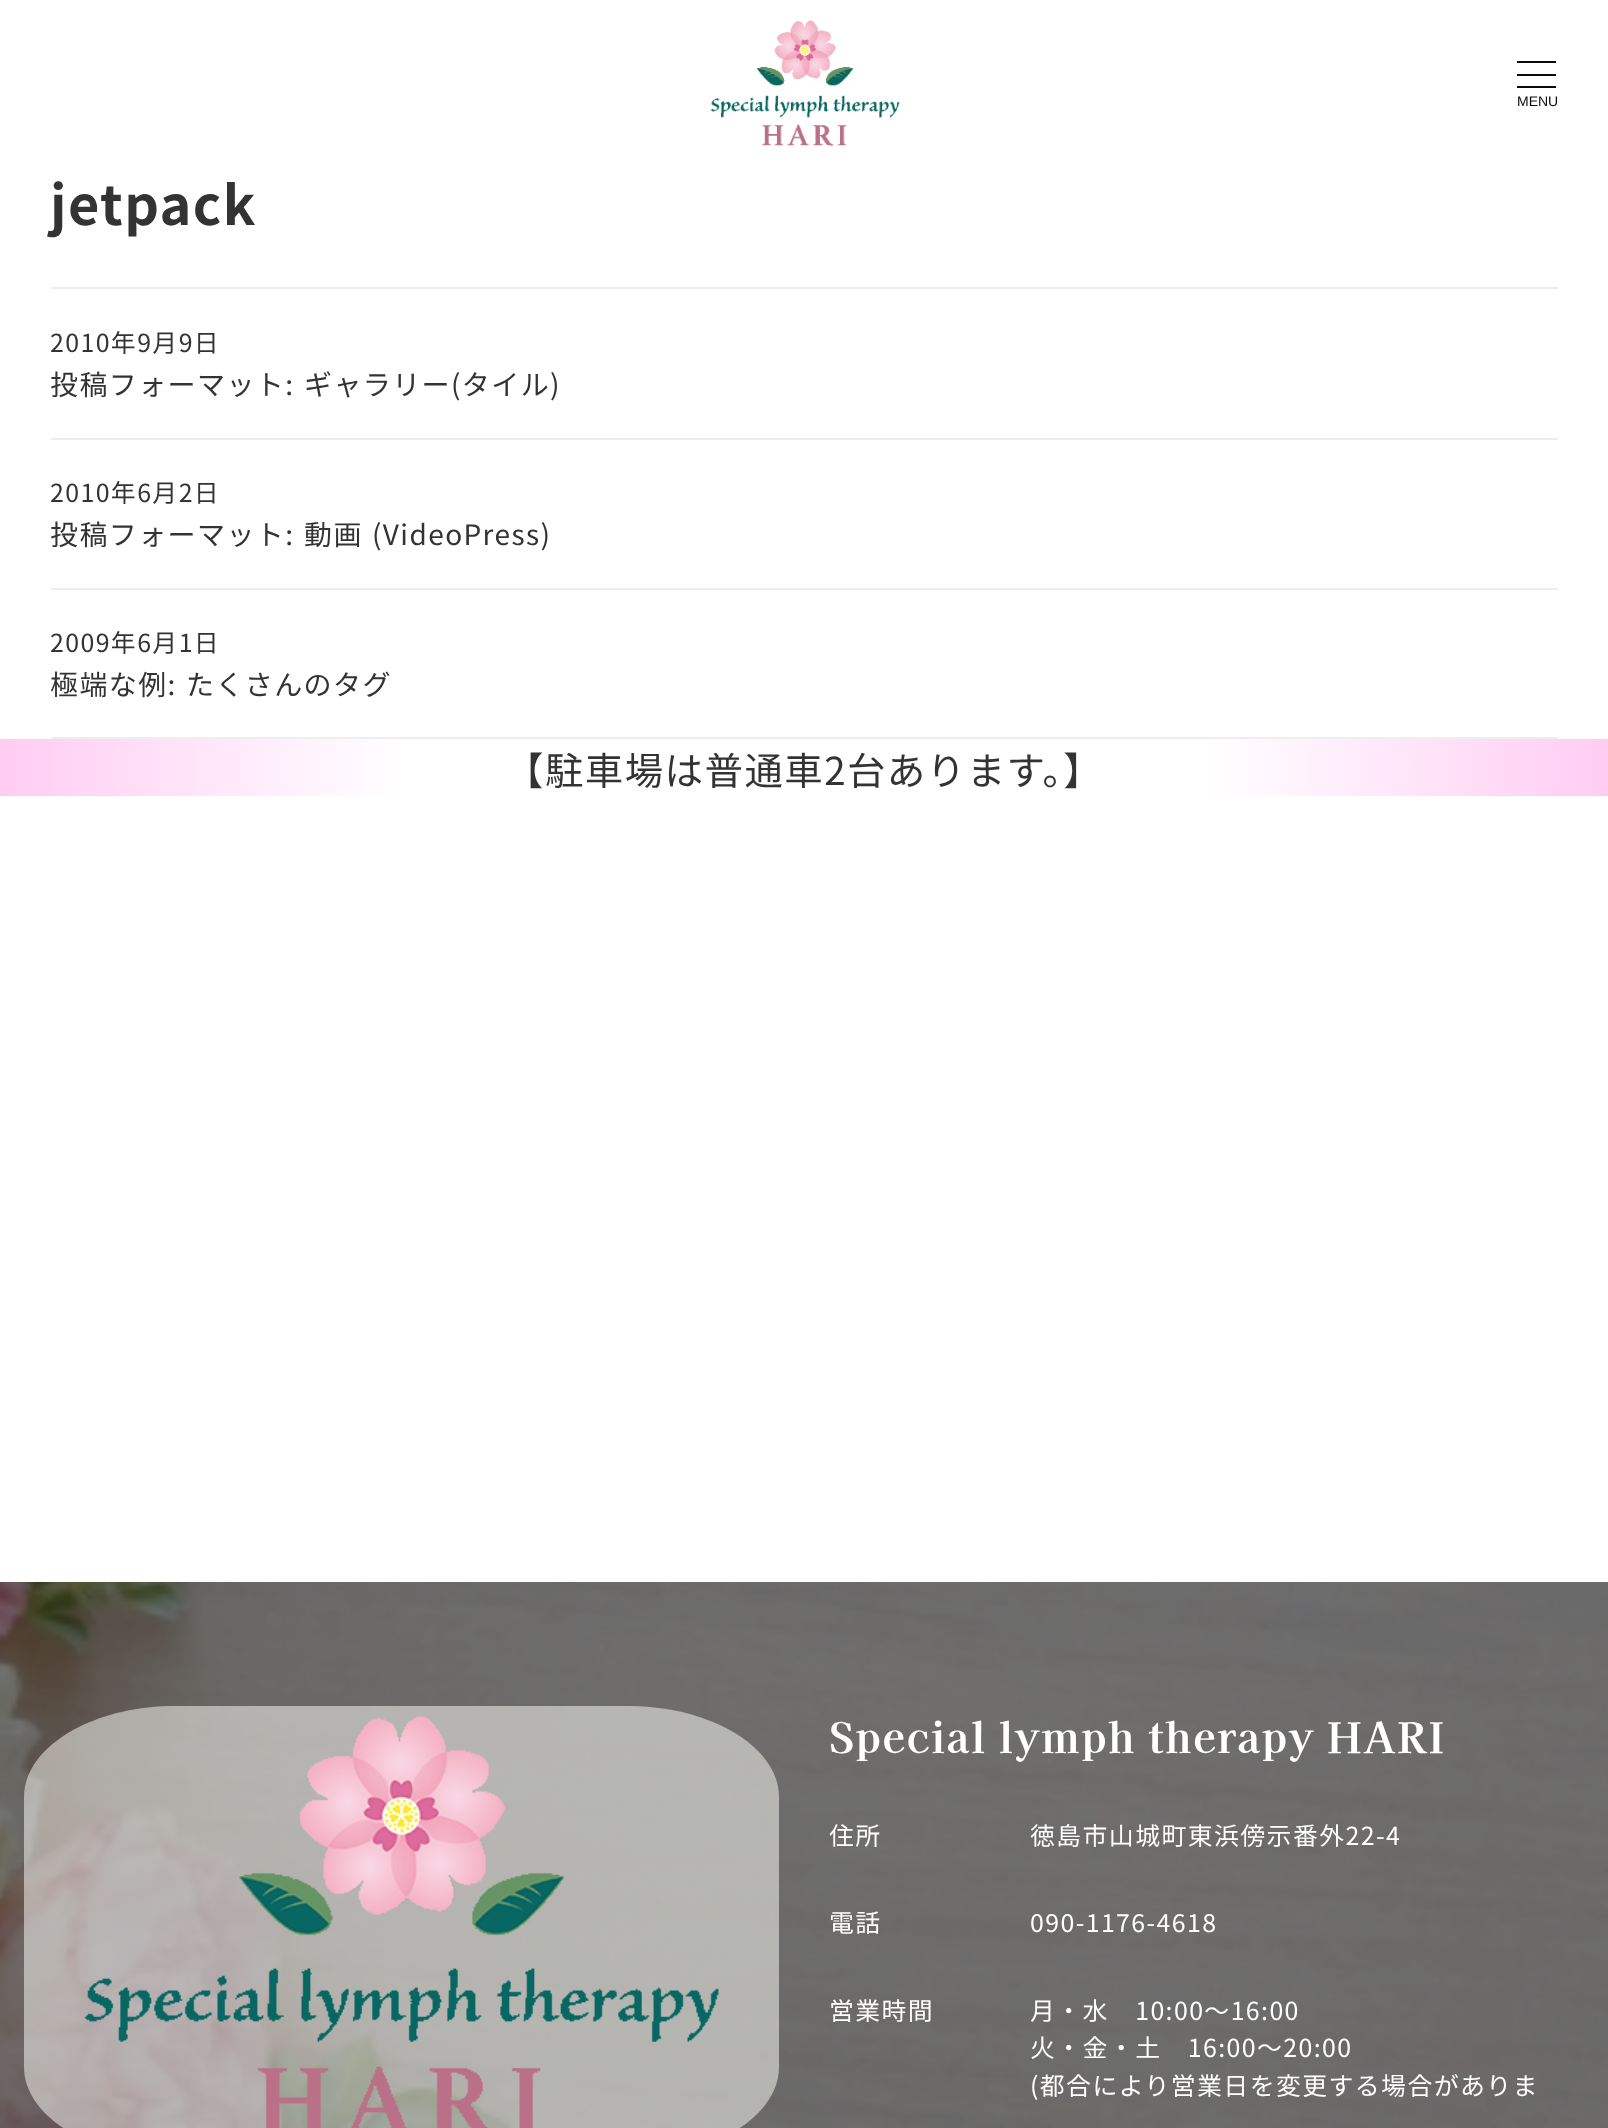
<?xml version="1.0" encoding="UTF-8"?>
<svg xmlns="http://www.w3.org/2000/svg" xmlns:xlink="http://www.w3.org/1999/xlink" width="1608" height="2128">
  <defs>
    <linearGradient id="g1" gradientUnits="userSpaceOnUse" x1="0" y1="767" x2="1608" y2="767"><stop offset="0" stop-color="#ffccf3" /><stop offset="0.25" stop-color="#ffffff" /><stop offset="0.75" stop-color="#ffffff" /><stop offset="1" stop-color="#ffccf3" /></linearGradient>
  </defs>
  <rect width="100%" height="100%" fill="#ffffff" />
  <image x="710" y="20" width="190" height="127" xlink:href="image1.png" />
  <rect x="1517" y="61" width="39" height="2" fill="#0a0a0a" />
  <rect x="1517" y="74" width="39" height="2" fill="#0a0a0a" />
  <rect x="1517" y="86" width="39" height="2" fill="#0a0a0a" />
  <rect x="51" y="287" width="1507" height="2" fill="#eeeeee" />
  <rect x="51" y="438" width="1507" height="2" fill="#eeeeee" />
  <rect x="51" y="588" width="1507" height="2" fill="#eeeeee" />
  <rect x="51" y="737" width="1507" height="2" fill="#eeeeee" />
  <rect y="739" width="1608" height="57" fill="url(#g1)" />
  <image x="0" y="1582" width="1608" height="546" xlink:href="image2.png" />
  <path d="M 175 1706 h 453 c 83 0 151 41 151 91 v 270 c 0 50 -68 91 -151 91 h -453 c -83 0 -151 -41 -151 -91 v -270 c 0 -50 68 -91 151 -91 z" fill="#fffffa" fill-opacity="0.5" />
  <image x="84" y="1716" width="635" height="412" xlink:href="image3.png" />
  <text x="1517" y="106" style="font-family: Liberation Sans; font-size: 14px; fill: #0a0a0a">MENU</text>
  <text x="50" y="225" style="font-family: Noto Sans JP; font-size: 54px; font-weight: bold; letter-spacing: 1.4px; fill: #333333">jetpack</text>
  <text x="50" y="352" style="font-family: Noto Sans JP; font-size: 24.9px; letter-spacing: 1.4px; fill: #333333">2010年9月9日</text>
  <text x="50" y="395" style="font-family: Noto Sans JP; font-size: 28px; letter-spacing: 1.4px; fill: #333333">投稿フォーマット:</text>
  <text x="304" y="395" style="font-family: Noto Sans JP; font-size: 28px; letter-spacing: 1.4px; fill: #333333">ギャラリー(タイル)</text>
  <text x="50" y="502" style="font-family: Noto Sans JP; font-size: 24.9px; letter-spacing: 1.4px; fill: #333333">2010年6月2日</text>
  <text x="50" y="545" style="font-family: Noto Sans JP; font-size: 28px; letter-spacing: 1.4px; fill: #333333">投稿フォーマット:</text>
  <text x="304" y="545" style="font-family: Noto Sans JP; font-size: 28px; letter-spacing: 1.4px; fill: #333333">動画</text>
  <text x="372" y="545" style="font-family: Noto Sans JP; font-size: 28px; letter-spacing: 1.4px; fill: #333333">(VideoPress)</text>
  <text x="50" y="652" style="font-family: Noto Sans JP; font-size: 24.9px; letter-spacing: 1.4px; fill: #333333">2009年6月1日</text>
  <text x="50" y="695" style="font-family: Noto Sans JP; font-size: 28px; letter-spacing: 1.4px; fill: #333333">極端な例:</text>
  <text x="186" y="695" style="font-family: Noto Sans JP; font-size: 28px; letter-spacing: 1.4px; fill: #333333">たくさんのタグ</text>
  <text x="505" y="785" style="font-family: Noto Sans JP; font-size: 38.5px; letter-spacing: 1.4px; fill: #333333">【駐車場は普通車2台あります。】</text>
  <text x="829" y="1753" style="font-family: Kaisei Opti; font-size: 42px; font-weight: bold; letter-spacing: 1.4px; fill: #ffffff">Special lymph therapy HARI</text>
  <text x="829" y="1845" style="font-family: Noto Sans JP; font-size: 24.9px; letter-spacing: 1.4px; fill: #ffffff">住所</text>
  <text x="1030" y="1845" style="font-family: Noto Sans JP; font-size: 24.9px; letter-spacing: 1.4px; fill: #ffffff">徳島市山城町東浜傍示番外22-4</text>
  <text x="829" y="1932" style="font-family: Noto Sans JP; font-size: 24.9px; letter-spacing: 1.4px; fill: #ffffff">電話</text>
  <text x="1030" y="1932" style="font-family: Noto Sans JP; font-size: 24.9px; letter-spacing: 1.4px; fill: #ffffff">090-1176-4618</text>
  <text x="829" y="2020" style="font-family: Noto Sans JP; font-size: 24.9px; letter-spacing: 1.4px; fill: #ffffff">営業時間</text>
  <text x="1030" y="2020" style="font-family: Noto Sans JP; font-size: 24.9px; letter-spacing: 1.4px; fill: #ffffff">月・水　10:00～16:00</text>
  <text x="1030" y="2057" style="font-family: Noto Sans JP; font-size: 24.9px; letter-spacing: 1.4px; fill: #ffffff">火・金・土　16:00～20:00</text>
  <text x="1030" y="2095" style="font-family: Noto Sans JP; font-size: 24.9px; letter-spacing: 1.4px; fill: #ffffff">(都合により営業日を変更する場合がありま</text>
</svg>
